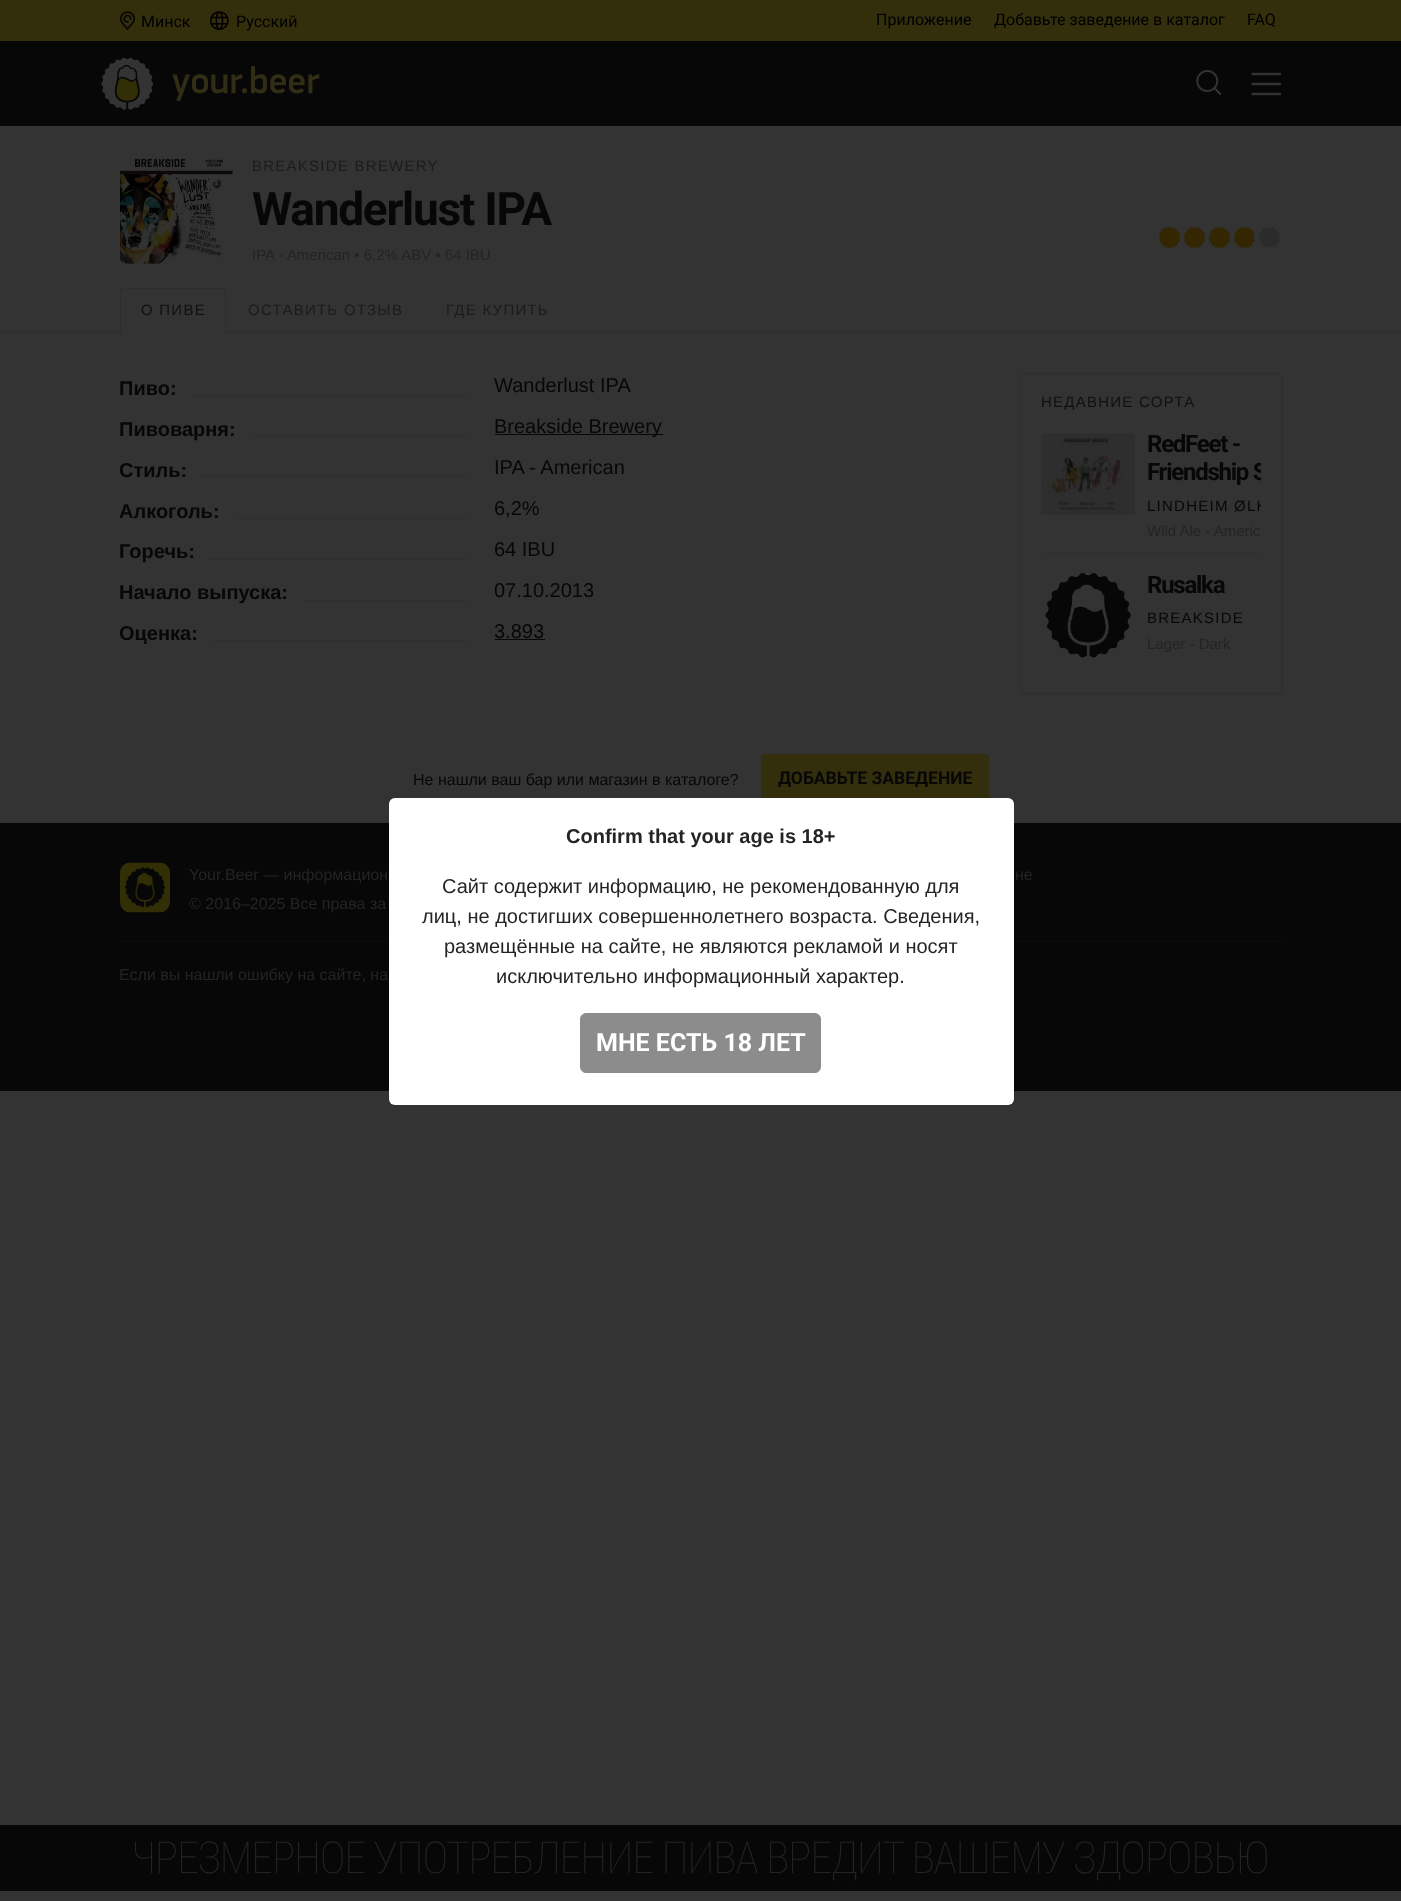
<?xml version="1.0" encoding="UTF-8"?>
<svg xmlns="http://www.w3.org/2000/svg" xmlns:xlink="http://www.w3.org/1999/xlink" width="1401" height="1901">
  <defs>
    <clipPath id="clip1"><rect x="1148" y="429" width="113" height="57" /></clipPath>
    <clipPath id="clip2"><rect x="1148" y="496" width="113" height="19" /></clipPath>
    <clipPath id="clip3"><rect x="1148" y="515" width="113" height="28" /></clipPath>
  </defs>
  <rect width="100%" height="100%" fill="#333333" />
  <rect width="1401" height="41" fill="#332e0c" />
  <image x="120" y="11" width="15" height="19" xlink:href="image1.png" />
  <image x="210" y="11" width="19" height="19" xlink:href="image2.png" />
  <rect y="41" width="1401" height="85" fill="#070707" />
  <image x="101" y="58" width="219" height="52" xlink:href="image3.png" />
  <image x="1196" y="70" width="25" height="25" xlink:href="image4.png" />
  <path d="M 1252.5 74 h 27.5 m -27.5 10 h 27.5 m -27.5 10 h 27.5" fill="none" stroke="#333333" stroke-width="2.5" stroke-linecap="round" />
  <image x="120" y="156" width="113" height="108" xlink:href="image5.png" />
  <image x="1158" y="226" width="123" height="23" xlink:href="image6.png" />
  <image x="1158" y="226" width="96" height="23" xlink:href="image7.png" />
  <rect y="331" width="1401" height="1" fill="#2c2d2e" />
  <path d="M 125 288 h 96 c 3 0 5 2 5 5 v 40 h -106 v -40 c 0 -3 2 -5 5 -5 z" fill="#333333" />
  <path d="M 125 288 l -3 1 v 1 l 3 -1 h 96 l 3 1 l 1 -1 l -4 -1 z" fill="#2c2d2e" />
  <path d="M 225 331 l 1 1 v -40 c 0 -1 -1 -2 -1 -3 l -1 1 l 1 1 z" fill="#2c2d2e" />
  <path d="M 120 292 v 40 l 2 -1 h -1 v -40 l 1 -1 v -1 c -1 1 -2 2 -2 3 z" fill="#2c2d2e" />
  <rect x="190" y="395" width="280" height="1" fill="#2f2f30" />
  <rect x="249" y="435" width="221" height="1" fill="#2f2f30" />
  <rect x="495" y="434" width="168" height="1" fill="#070708" />
  <rect x="200" y="476" width="270" height="1" fill="#2f2f30" />
  <rect x="233" y="518" width="237" height="1" fill="#2f2f30" />
  <rect x="208" y="559" width="262" height="1" fill="#2f2f30" />
  <rect x="301" y="600" width="169" height="1" fill="#2f2f30" />
  <rect x="211" y="640" width="259" height="1" fill="#2f2f30" />
  <rect x="495" y="639" width="50" height="1" fill="#070708" />
  <rect x="1020.5" y="373.5" width="262" height="320" rx="4.5" fill="none" stroke="#2c2d2e" />
  <rect x="1041" y="553" width="220" height="1" fill="#2f2f30" />
  <image x="1041" y="433" width="94" height="82" xlink:href="image8.png" />
  <image x="1045" y="573" width="86" height="85" xlink:href="image9.png" />
  <rect x="761.5" y="754.5" width="227" height="48" rx="3.5" fill="#332e0c" stroke="#332e0c" />
  <rect y="823" width="1401" height="268" fill="#070708" />
  <image x="120" y="862" width="50" height="51" xlink:href="image10.png" />
  <rect x="120" y="941" width="1163" height="1" fill="#0b0c0c" />
  <rect y="1825" width="1401" height="66" fill="#070708" />
  <rect x="389" y="798" width="625" height="307" rx="6" fill="#ffffff" />
  <rect x="580.5" y="1013.5" width="240" height="59" rx="5.5" fill="#8c8c8c" stroke="#8c8c8c" />
  <text x="141" y="27" style="font-family: Roboto; font-size: 16px; fill: #000000">Минск</text>
  <text x="236" y="27" style="font-family: Roboto; font-size: 16px; fill: #000000">Русский</text>
  <text x="876" y="25" style="font-family: Roboto; font-size: 16px; fill: #000000">Приложение</text>
  <text x="994" y="25" style="font-family: Roboto; font-size: 16px; fill: #000000">Добавьте заведение в каталог</text>
  <text x="1247" y="25" style="font-family: Roboto; font-size: 16px; fill: #000000">FAQ</text>
  <text x="252" y="171" style="font-family: Liberation Sans; font-size: 15px; letter-spacing: 1.25px; fill: #1c1c1c">BREAKSIDE BREWERY</text>
  <text x="252" y="225" style="font-family: Roboto; font-size: 46px; font-weight: bold; letter-spacing: -1.25px; fill: #070708">Wanderlust IPA</text>
  <text x="252" y="260" style="font-family: Liberation Sans; font-size: 15px; fill: #232426">IPA - American • 6,2% ABV • 64 IBU</text>
  <text x="141" y="315" style="font-family: Liberation Sans; font-size: 15px; letter-spacing: 1.25px; fill: #0f1011">О ПИВЕ</text>
  <text x="248" y="315" style="font-family: Liberation Sans; font-size: 15px; letter-spacing: 1.25px; fill: #1c1c1c">ОСТАВИТЬ ОТЗЫВ</text>
  <text x="446" y="315" style="font-family: Liberation Sans; font-size: 15px; letter-spacing: 1.25px; fill: #1c1c1c">ГДЕ КУПИТЬ</text>
  <text x="119" y="395" style="font-family: Liberation Sans; font-size: 20px; font-weight: bold; fill: #070708">Пиво:</text>
  <text x="494" y="392" style="font-family: Liberation Sans; font-size: 20px; fill: #070708">Wanderlust IPA</text>
  <text x="119" y="436" style="font-family: Liberation Sans; font-size: 20px; font-weight: bold; fill: #070708">Пивоварня:</text>
  <text x="494" y="433" style="font-family: Liberation Sans; font-size: 20px; fill: #070708">Breakside Brewery</text>
  <text x="119" y="477" style="font-family: Liberation Sans; font-size: 20px; font-weight: bold; fill: #070708">Стиль:</text>
  <text x="494" y="474" style="font-family: Liberation Sans; font-size: 20px; fill: #070708">IPA - American</text>
  <text x="119" y="518" style="font-family: Liberation Sans; font-size: 20px; font-weight: bold; fill: #070708">Алкоголь:</text>
  <text x="494" y="515" style="font-family: Liberation Sans; font-size: 20px; fill: #070708">6,2%</text>
  <text x="119" y="558" style="font-family: Liberation Sans; font-size: 20px; font-weight: bold; fill: #070708">Горечь:</text>
  <text x="494" y="556" style="font-family: Liberation Sans; font-size: 20px; fill: #070708">64 IBU</text>
  <text x="119" y="599" style="font-family: Liberation Sans; font-size: 20px; font-weight: bold; fill: #070708">Начало выпуска:</text>
  <text x="494" y="597" style="font-family: Liberation Sans; font-size: 20px; fill: #070708">07.10.2013</text>
  <text x="119" y="640" style="font-family: Liberation Sans; font-size: 20px; font-weight: bold; fill: #070708">Оценка:</text>
  <text x="494" y="638" style="font-family: Liberation Sans; font-size: 20px; fill: #070708">3.893</text>
  <text x="1041" y="407" style="font-family: Liberation Sans; font-size: 15px; letter-spacing: 1.25px; fill: #0f1011">НЕДАВНИЕ СОРТА</text>
  <text x="1147" y="452" style="font-family: Roboto; font-size: 24px; font-weight: bold; letter-spacing: -1.25px; fill: #070708">RedFeet -</text>
  <g clip-path="url(#clip1)">
    <text x="1147" y="480" style="font-family: Roboto; font-size: 24px; font-weight: bold; letter-spacing: -1.25px; fill: #070708">Friendship S</text>
  </g>
  <g clip-path="url(#clip2)">
    <text x="1147" y="511" style="font-family: Liberation Sans; font-size: 15px; letter-spacing: 1.25px; fill: #070708">LINDHEIM ØLK</text>
  </g>
  <g clip-path="url(#clip3)">
    <text x="1147" y="536" style="font-family: Liberation Sans; font-size: 15px; fill: #232426">Wild Ale - Americ</text>
  </g>
  <text x="1147" y="593" style="font-family: Roboto; font-size: 24px; font-weight: bold; letter-spacing: -1.25px; fill: #070708">Rusalka</text>
  <text x="1147" y="623" style="font-family: Liberation Sans; font-size: 15px; letter-spacing: 1.25px; fill: #070708">BREAKSIDE</text>
  <text x="1147" y="649" style="font-family: Liberation Sans; font-size: 15px; fill: #232426">Lager - Dark</text>
  <text x="413" y="785" style="font-family: Liberation Sans; font-size: 16px; fill: #070708">Не нашли ваш бар или магазин в каталоге?</text>
  <text x="778" y="784" style="font-family: Roboto; font-size: 17.5px; font-weight: bold; fill: #070708">ДОБАВЬТЕ ЗАВЕДЕНИЕ</text>
  <text x="189" y="880" style="font-family: Liberation Sans; font-size: 16px; fill: #232426">Your.Beer — информацион</text>
  <text x="1015" y="880" style="font-family: Liberation Sans; font-size: 16px; fill: #232426">не</text>
  <text x="189" y="909" style="font-family: Liberation Sans; font-size: 16px; fill: #232426">© 2016–2025 Все права за</text>
  <text x="119" y="980" style="font-family: Liberation Sans; font-size: 16px; fill: #232426">Если вы нашли ошибку на сайте, на</text>
  <text x="131" y="1873" style="font-family: Roboto Condensed; font-size: 44px; font-weight: 100; letter-spacing: -1.25px; fill: #232426">ЧРЕЗМЕРНОЕ УПОТРЕБЛЕНИЕ ПИВА ВРЕДИТ ВАШЕМУ ЗДОРОВЬЮ</text>
  <text x="566" y="843" style="font-family: Liberation Sans; font-size: 20px; font-weight: bold; fill: #232426">Confirm that your age is 18+</text>
  <text x="442" y="893" style="font-family: Liberation Sans; font-size: 20px; fill: #232426">Сайт содержит информацию, не рекомендованную для</text>
  <text x="422" y="923" style="font-family: Liberation Sans; font-size: 20px; fill: #232426">лиц, не достигших совершеннолетнего возраста. Сведения,</text>
  <text x="444" y="953" style="font-family: Liberation Sans; font-size: 20px; fill: #232426">размещённые на сайте, не являются рекламой и носят</text>
  <text x="496" y="983" style="font-family: Liberation Sans; font-size: 20px; fill: #232426">исключительно информационный характер.</text>
  <text x="596" y="1051" style="font-family: Roboto; font-size: 25px; font-weight: bold; fill: #ffffff">МНЕ ЕСТЬ 18 ЛЕТ</text>
</svg>
